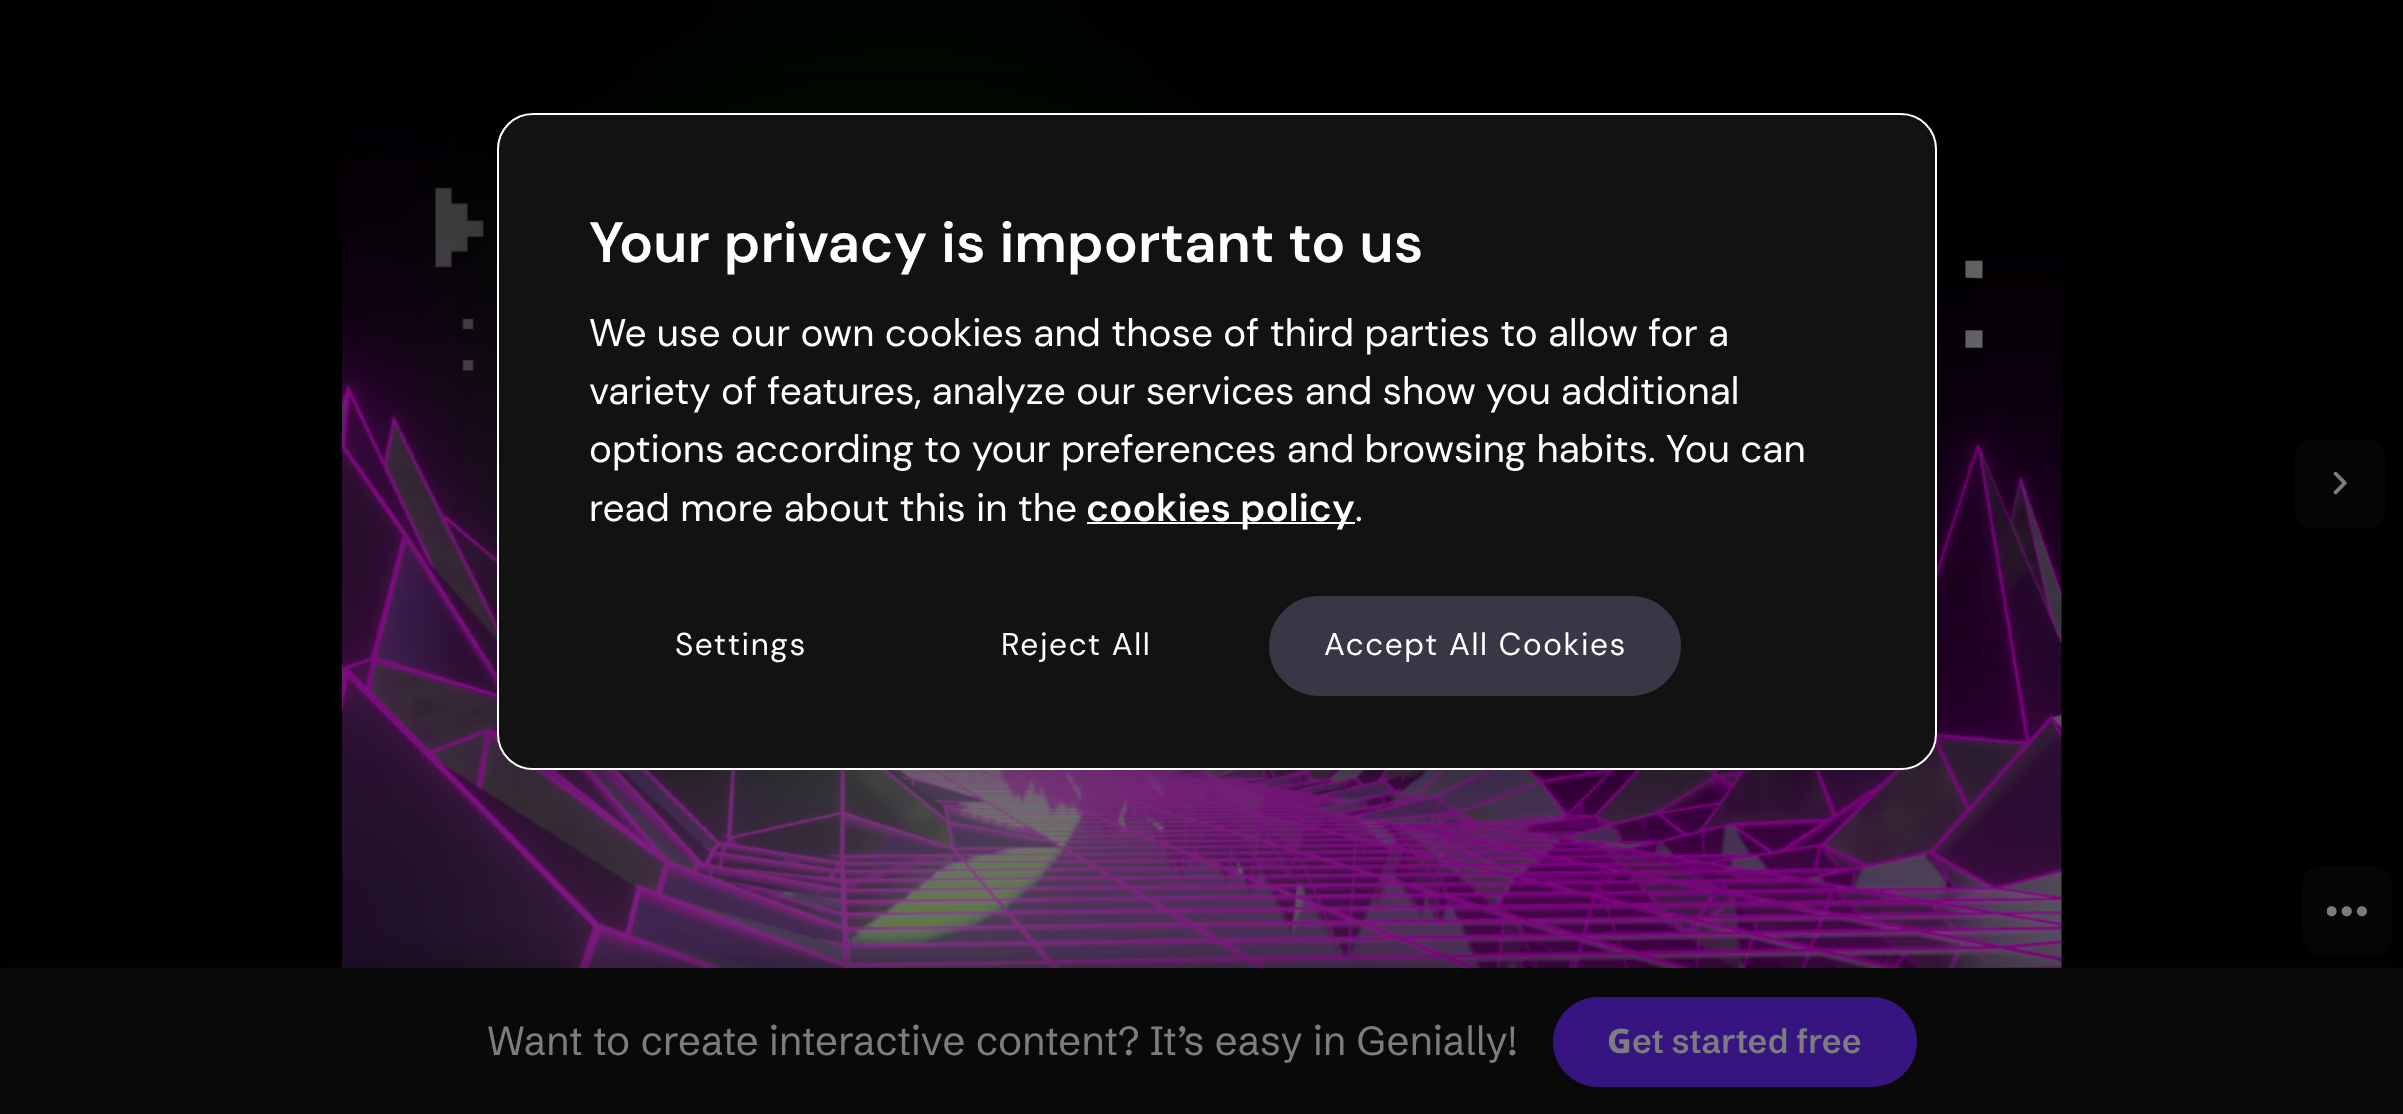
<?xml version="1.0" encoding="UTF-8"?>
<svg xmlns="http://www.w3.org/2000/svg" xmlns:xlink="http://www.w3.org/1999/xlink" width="2403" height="1114">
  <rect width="100%" height="100%" fill="#000000" />
  <image x="342" y="1" width="1720" height="967" xlink:href="image1.png" />
  <image x="434" y="187" width="50" height="81" xlink:href="image2.png" />
  <image x="462" y="318" width="12" height="53" xlink:href="image3.png" />
  <image x="1964" y="260" width="19" height="88" xlink:href="image4.png" />
  <rect x="497" y="113" width="1440" height="657" rx="36" fill="#000000" fill-opacity="0.2" filter="blur(20px)" />
  <rect x="498" y="114" width="1438" height="655" rx="35" fill="#121212" stroke="#ffffff" stroke-width="2" />
  <rect x="1087" y="522" width="268" height="2" fill="#ffffff" />
  <rect x="1268" y="595" width="414" height="102" rx="51" fill="#393645" stroke="#121212" stroke-width="2" />
  <rect x="2295" y="439" width="90" height="90" rx="18" fill="#050505" />
  <image x="2333" y="471" width="14" height="24" xlink:href="image5.png" />
  <rect x="2302" y="866" width="90" height="90" rx="18" fill="#050505" />
  <image x="2327" y="906" width="40" height="11" xlink:href="image6.png" />
  <rect y="963" width="2403" height="149" fill="#090909" fill-opacity="0.3" filter="blur(14.5px)" />
  <rect y="968" width="2403" height="146" fill="#090909" />
  <rect x="1553" y="997" width="364" height="90" rx="45" fill="#361580" />
  <text x="589" y="262" style="font-family: DM Sans; font-size: 56.75px; font-weight: 600; fill: #ffffff">Your privacy is important to us</text>
  <text x="589" y="346" style="font-family: DM Sans; font-size: 38.75px; fill: #ffffff">We use our own cookies and those of third parties to allow for a</text>
  <text x="589" y="404" word-spacing="-0.1" style="font-family: DM Sans; font-size: 38.75px; fill: #ffffff">variety of features, analyze our services and show you additional</text>
  <text x="589" y="462" word-spacing="-0.1" style="font-family: DM Sans; font-size: 38.75px; fill: #ffffff">options according to your preferences and browsing habits. You can</text>
  <text x="589" y="521" style="font-family: DM Sans; font-size: 38.75px; fill: #ffffff">read more about this in the</text>
  <text x="1086" y="521" style="font-family: DM Sans; font-size: 38.75px; font-weight: 600; fill: #ffffff">cookies policy</text>
  <text x="1355" y="521" style="font-family: DM Sans; font-size: 38.75px; fill: #ffffff">.</text>
  <text x="675" y="655" style="font-family: DM Sans; font-size: 31.5px; letter-spacing: 1.6px; fill: #ffffff">Settings</text>
  <text x="1001" y="655" style="font-family: DM Sans; font-size: 31.5px; letter-spacing: 1.6px; fill: #ffffff">Reject All</text>
  <text x="1324" y="655" style="font-family: DM Sans; font-size: 31.5px; letter-spacing: 1.6px; fill: #ffffff">Accept All Cookies</text>
  <text x="487" y="1055" style="font-family: Schibsted Grotesk; font-size: 40.5px; fill: #7d7c7e">Want to create interactive content? It’s easy in Genially!</text>
  <text x="1607" y="1053" style="font-family: Noto Sans; font-size: 33.75px; font-weight: 800; fill: #7d7c7e">G</text>
  <text x="1632" y="1053" style="font-family: Schibsted Grotesk; font-size: 33.75px; font-weight: 600; fill: #7d7c7e">et started free</text>
</svg>
